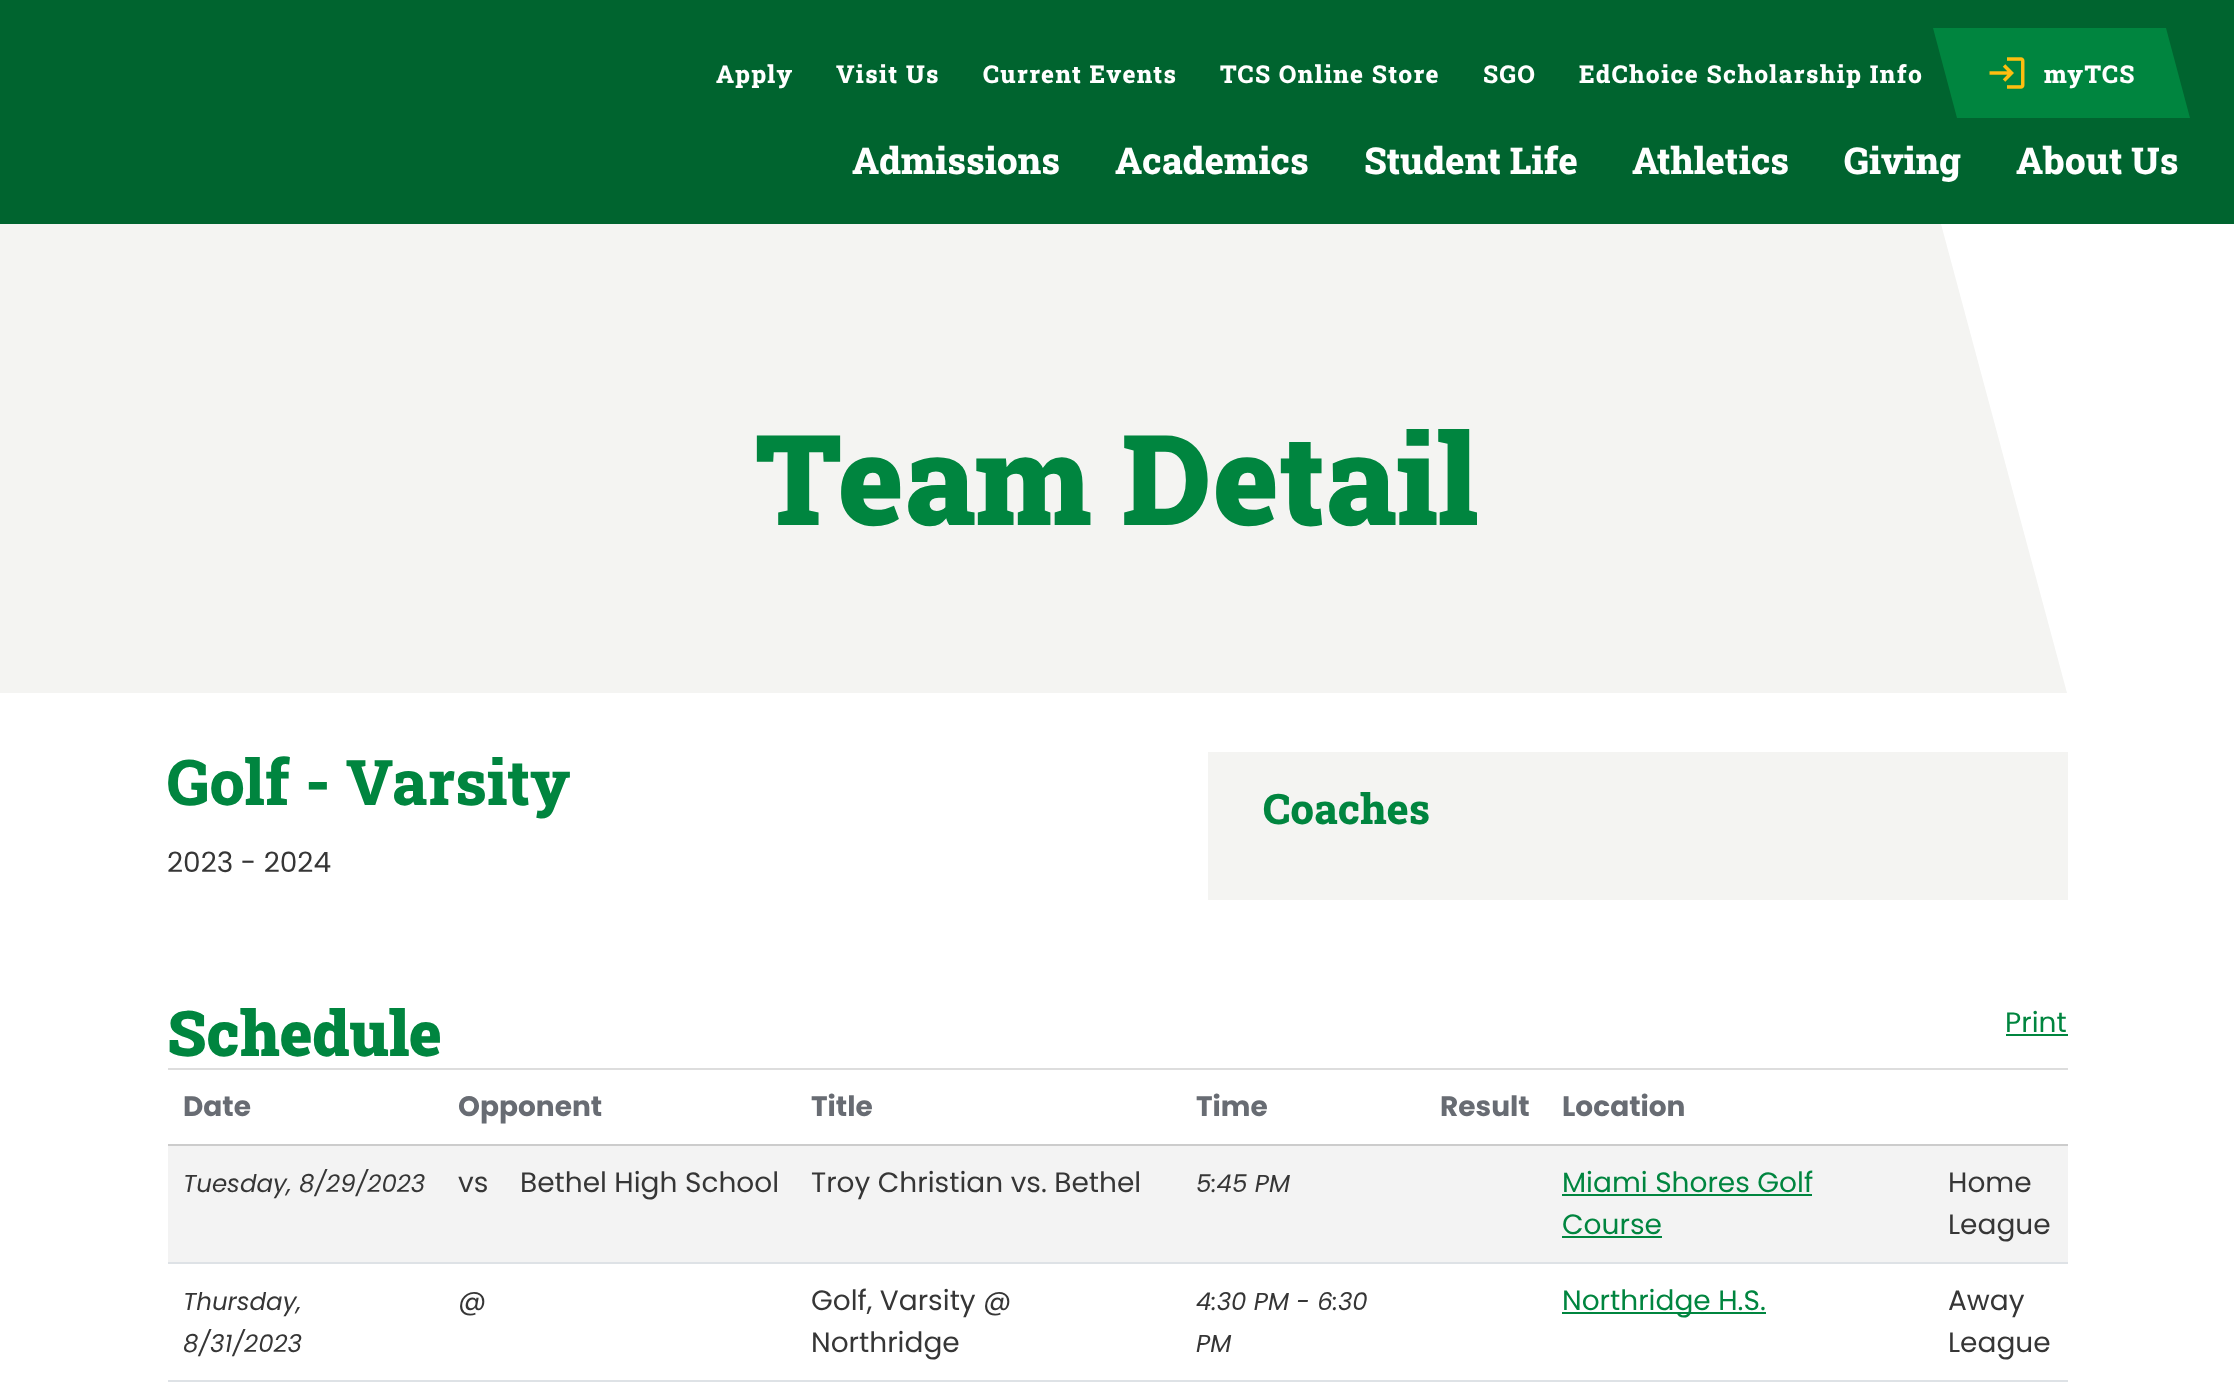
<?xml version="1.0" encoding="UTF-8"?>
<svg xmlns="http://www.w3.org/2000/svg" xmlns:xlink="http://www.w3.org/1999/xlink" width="2234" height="1387">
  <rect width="100%" height="100%" fill="#ffffff" />
  <rect width="2234" height="224" fill="#00642f" />
  <path d="M 1933 28 h 233 l 24 90 h -233 z" fill="#00853f" />
  <image x="1989" y="57" width="36" height="32" xlink:href="image1.png" />
  <path d="M -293 224 h 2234 l 126 469 h -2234 z" fill="#f4f4f2" />
  <rect x="1208" y="752" width="860" height="148" fill="#f4f4f2" />
  <rect x="2006" y="1034" width="62" height="2" fill="#00853f" />
  <rect x="168" y="1068" width="1900" height="2" fill="#dddddd" />
  <rect x="168" y="1144" width="1900" height="2" fill="#cccccc" />
  <rect x="168" y="1146" width="1900" height="116" fill="#f3f3f3" />
  <rect x="1562" y="1194" width="250" height="2" fill="#00853f" />
  <rect x="1562" y="1236" width="100" height="2" fill="#00853f" />
  <rect x="168" y="1262" width="1900" height="2" fill="#dee2e6" />
  <rect x="1562" y="1312" width="204" height="2" fill="#00853f" />
  <rect x="168" y="1380" width="1900" height="2" fill="#dee2e6" />
  <text x="716" y="83" style="font-family: Roboto Slab; font-size: 24.5px; font-weight: 800; letter-spacing: 1.4px; fill: #ffffff">Apply</text>
  <text x="836" y="83" style="font-family: Roboto Slab; font-size: 24.5px; font-weight: 800; letter-spacing: 1.4px; fill: #ffffff">Visit Us</text>
  <text x="983" y="83" style="font-family: Roboto Slab; font-size: 24.5px; font-weight: 800; letter-spacing: 1.4px; fill: #ffffff">Current Events</text>
  <text x="1220" y="83" style="font-family: Roboto Slab; font-size: 24.5px; font-weight: 800; letter-spacing: 1.4px; fill: #ffffff">TCS Online Store</text>
  <text x="1483" y="83" style="font-family: Roboto Slab; font-size: 24.5px; font-weight: 800; letter-spacing: 1.4px; fill: #ffffff">SGO</text>
  <text x="1579" y="83" style="font-family: Roboto Slab; font-size: 24.5px; font-weight: 800; letter-spacing: 1.4px; fill: #ffffff">EdChoice Scholarship Info</text>
  <text x="2044" y="83" style="font-family: Roboto Slab; font-size: 24.5px; font-weight: 800; letter-spacing: 1.4px; fill: #ffffff">myTCS</text>
  <text x="852" y="174" style="font-family: Roboto Slab; font-size: 37px; font-weight: 800; fill: #ffffff">Admissions</text>
  <text x="1115" y="174" style="font-family: Roboto Slab; font-size: 37px; font-weight: 800; fill: #ffffff">Academics</text>
  <text x="1364" y="174" style="font-family: Roboto Slab; font-size: 37px; font-weight: 800; fill: #ffffff">Student Life</text>
  <text x="1632" y="174" style="font-family: Roboto Slab; font-size: 37px; font-weight: 800; fill: #ffffff">Athletics</text>
  <text x="1844" y="174" style="font-family: Roboto Slab; font-size: 37px; font-weight: 800; fill: #ffffff">Giving</text>
  <text x="2016" y="174" style="font-family: Roboto Slab; font-size: 37px; font-weight: 800; fill: #ffffff">About Us</text>
  <text x="756" y="525" style="font-family: Roboto Slab; font-size: 126px; font-weight: 900; fill: #00853f">Team Detail</text>
  <text x="167" y="805" style="font-family: Roboto Slab; font-size: 63px; font-weight: 800; fill: #00853f">Golf - Varsity</text>
  <text x="167" y="872" style="font-family: Poppins; font-size: 28px; fill: #363636">2023 - 2024</text>
  <text x="1263" y="824" style="font-family: Roboto Slab; font-size: 42px; font-weight: 800; fill: #00853f">Coaches</text>
  <text x="167" y="1056" style="font-family: Roboto Slab; font-size: 63px; font-weight: 900; fill: #00853f">Schedule</text>
  <text x="2005" y="1032" style="font-family: Poppins; font-size: 28px; fill: #00853f">Print</text>
  <text x="183" y="1116" style="font-family: Poppins; font-size: 28px; font-weight: bold; fill: #686c73">Date</text>
  <text x="458" y="1116" style="font-family: Poppins; font-size: 28px; font-weight: bold; fill: #686c73">Opponent</text>
  <text x="811" y="1116" style="font-family: Poppins; font-size: 28px; font-weight: bold; fill: #686c73">Title</text>
  <text x="1196" y="1116" style="font-family: Poppins; font-size: 28px; font-weight: bold; fill: #686c73">Time</text>
  <text x="1440" y="1116" style="font-family: Poppins; font-size: 28px; font-weight: bold; fill: #686c73">Result</text>
  <text x="1562" y="1116" style="font-family: Poppins; font-size: 28px; font-weight: bold; fill: #686c73">Location</text>
  <text x="183" y="1192" style="font-family: Poppins; font-size: 24.5px; font-style: italic; fill: #363636">Tuesday, 8/29/2023</text>
  <text x="458" y="1192" style="font-family: Poppins; font-size: 28px; fill: #363636">vs</text>
  <text x="520" y="1192" style="font-family: Poppins; font-size: 28px; fill: #363636">Bethel High School</text>
  <text x="811" y="1192" style="font-family: Poppins; font-size: 28px; fill: #363636">Troy Christian vs. Bethel</text>
  <text x="1196" y="1192" style="font-family: Poppins; font-size: 24.5px; font-style: italic; fill: #363636">5:45 PM</text>
  <text x="1562" y="1192" style="font-family: Poppins; font-size: 28px; fill: #00853f">Miami Shores Golf</text>
  <text x="1562" y="1234" style="font-family: Poppins; font-size: 28px; fill: #00853f">Course</text>
  <text x="1948" y="1192" style="font-family: Poppins; font-size: 28px; fill: #363636">Home</text>
  <text x="1948" y="1234" style="font-family: Poppins; font-size: 28px; fill: #363636">League</text>
  <text x="183" y="1310" style="font-family: Poppins; font-size: 24.5px; font-style: italic; fill: #363636">Thursday,</text>
  <text x="183" y="1352" style="font-family: Poppins; font-size: 24.5px; font-style: italic; fill: #363636">8/31/2023</text>
  <text x="458" y="1310" style="font-family: Poppins; font-size: 28px; fill: #363636">@</text>
  <text x="811" y="1310" style="font-family: Poppins; font-size: 28px; fill: #363636">Golf, Varsity @</text>
  <text x="811" y="1352" style="font-family: Poppins; font-size: 28px; fill: #363636">Northridge</text>
  <text x="1196" y="1310" style="font-family: Poppins; font-size: 24.5px; font-style: italic; fill: #363636">4:30 PM - 6:30</text>
  <text x="1196" y="1352" style="font-family: Poppins; font-size: 24.5px; font-style: italic; fill: #363636">PM</text>
  <text x="1562" y="1310" style="font-family: Poppins; font-size: 28px; fill: #00853f">Northridge H.S.</text>
  <text x="1948" y="1310" style="font-family: Poppins; font-size: 28px; fill: #363636">Away</text>
  <text x="1948" y="1352" style="font-family: Poppins; font-size: 28px; fill: #363636">League</text>
</svg>
